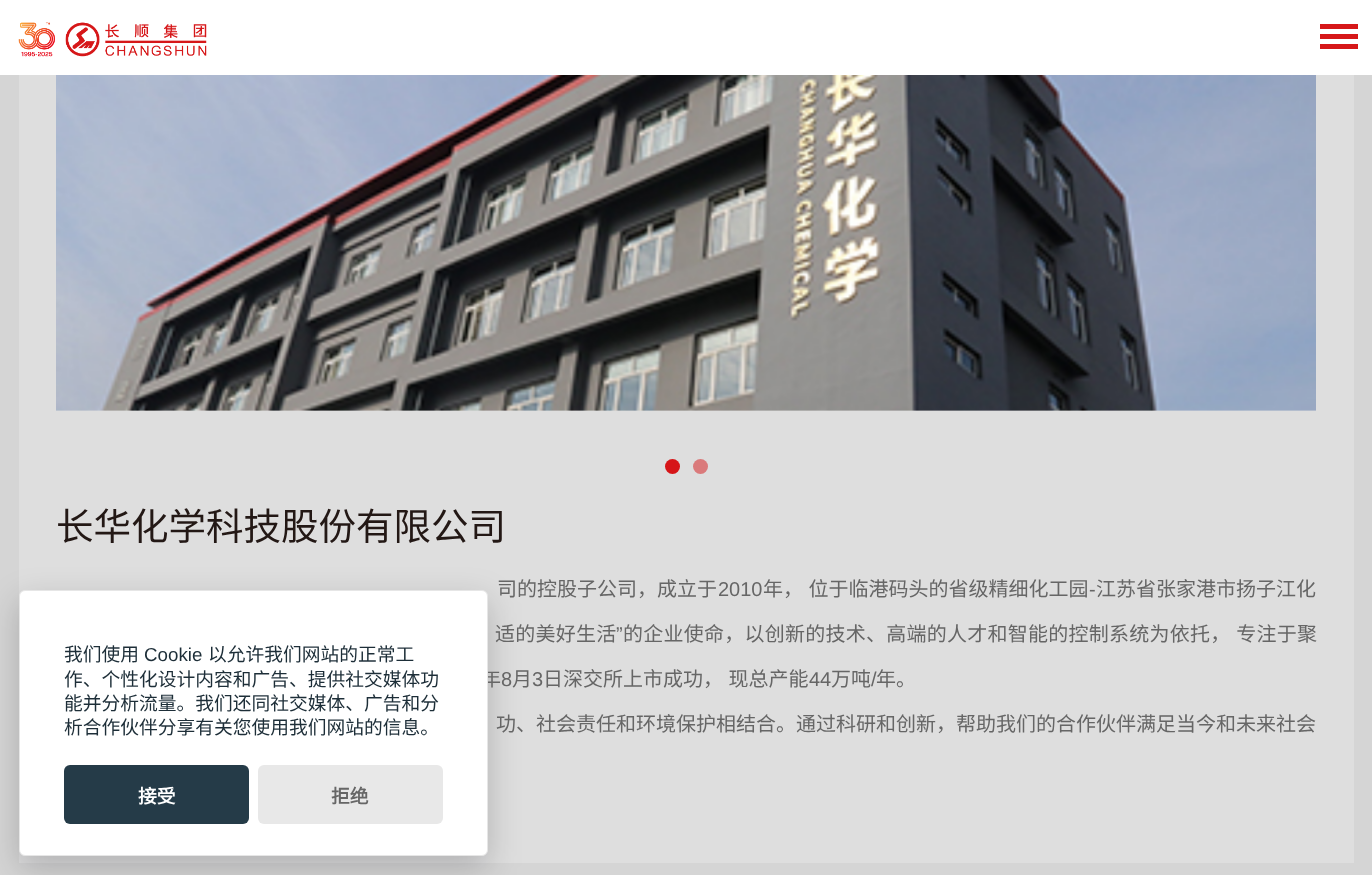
<?xml version="1.0" encoding="UTF-8"?>
<svg xmlns="http://www.w3.org/2000/svg" xmlns:xlink="http://www.w3.org/1999/xlink" width="1372" height="875">
  <rect width="100%" height="100%" fill="#d5d5d5" />
  <rect width="1372" height="75" fill="#ffffff" />
  <image x="18" y="22" width="189" height="35" xlink:href="image1.png" />
  <rect x="1320" y="24" width="38" height="5" fill="#d61719" />
  <rect x="1320" y="34" width="38" height="5" fill="#d61719" />
  <rect x="1320" y="44" width="38" height="5" fill="#d61719" />
  <rect x="19" y="75" width="1335" height="788" fill="#dedede" />
  <image x="56" y="75" width="1260" height="336" xlink:href="image2.png" />
  <circle cx="672.5" cy="466.5" r="7.5" fill="#d61518" />
  <circle cx="700.5" cy="466.5" r="7.5" fill="#da7a7b" />
  <rect x="19" y="601" width="469" height="267" rx="6" fill="#020203" fill-opacity="0.2" filter="blur(16.5px)" />
  <text x="56" y="540" style="font-family: Noto Sans CJK SC; font-size: 37.5px; fill: #231815">长华化学科技股份有限公司</text>
  <text x="497" y="596" style="font-family: Noto Sans CJK SC; font-size: 20px; fill: #666666">司的控股子公司，成立于</text>
  <text x="718" y="596" style="font-family: Liberation Sans; font-size: 20px; fill: #666666">2010</text>
  <text x="763" y="596" word-spacing="1" style="font-family: Noto Sans CJK SC; font-size: 20px; fill: #666666">年， 位于临港码头的省级精细化工园</text>
  <text x="1089" y="596" style="font-family: Liberation Sans; font-size: 20px; fill: #666666">-</text>
  <text x="1096" y="596" style="font-family: Noto Sans CJK SC; font-size: 20px; fill: #666666">江苏省张家港市扬子江化</text>
  <text x="495" y="641" style="font-family: Noto Sans CJK SC; font-size: 20px; letter-spacing: 0.25px; fill: #666666">适的美好生活</text>
  <text x="616" y="641" style="font-family: Liberation Sans; font-size: 20px; letter-spacing: 0.25px; fill: #666666">”</text>
  <text x="623" y="641" word-spacing="1" style="font-family: Noto Sans CJK SC; font-size: 20px; letter-spacing: 0.25px; fill: #666666">的企业使命，以创新的技术、高端的人才和智能的控制系统为依托， 专注于聚</text>
  <text x="481" y="686" style="font-family: Noto Sans CJK SC; font-size: 20px; fill: #666666">年</text>
  <text x="501" y="686" style="font-family: Liberation Sans; font-size: 20px; fill: #666666">8</text>
  <text x="512" y="686" style="font-family: Noto Sans CJK SC; font-size: 20px; fill: #666666">月</text>
  <text x="532" y="686" style="font-family: Liberation Sans; font-size: 20px; fill: #666666">3</text>
  <text x="543" y="686" word-spacing="1" style="font-family: Noto Sans CJK SC; font-size: 20px; fill: #666666">日深交所上市成功， 现总产能</text>
  <text x="809" y="686" style="font-family: Liberation Sans; font-size: 20px; fill: #666666">44</text>
  <text x="831" y="686" style="font-family: Noto Sans CJK SC; font-size: 20px; fill: #666666">万吨</text>
  <text x="871" y="686" style="font-family: Liberation Sans; font-size: 20px; fill: #666666">/</text>
  <text x="876" y="686" style="font-family: Noto Sans CJK SC; font-size: 20px; fill: #666666">年。</text>
  <text x="496" y="731" style="font-family: Noto Sans CJK SC; font-size: 20px; fill: #666666">功、社会责任和环境保护相结合。通过科研和创新，帮助我们的合作伙伴满足当今和未来社会</text>
  <rect x="19.5" y="590.5" width="468" height="265" rx="5.5" fill="#ffffff" stroke="#e6e6e6" />
  <text x="64" y="661" style="font-family: Noto Sans CJK SC; font-size: 18.75px; fill: #1d2e38">我们使用</text>
  <text x="144" y="661" style="font-family: Liberation Sans; font-size: 18.75px; fill: #1d2e38">Cookie</text>
  <text x="208" y="661" style="font-family: Noto Sans CJK SC; font-size: 18.75px; fill: #1d2e38">以允许我们网站的正常工</text>
  <text x="64" y="686" style="font-family: Noto Sans CJK SC; font-size: 18.75px; fill: #1d2e38">作、个性化设计内容和广告、提供社交媒体功</text>
  <text x="64" y="710" style="font-family: Noto Sans CJK SC; font-size: 18.75px; fill: #1d2e38">能并分析流量。我们还同社交媒体、广告和分</text>
  <text x="64" y="734" style="font-family: Noto Sans CJK SC; font-size: 18.75px; fill: #1d2e38">析合作伙伴分享有关您使用我们网站的信息。</text>
  <rect x="64" y="765" width="185" height="59" rx="6" fill="#253b48" />
  <text x="138" y="803" style="font-family: Noto Sans CJK SC; font-size: 18.75px; font-weight: bold; fill: #ffffff">接受</text>
  <rect x="258" y="765" width="185" height="59" rx="6" fill="#e8e8e8" />
  <text x="331" y="803" style="font-family: Noto Sans CJK SC; font-size: 18.75px; font-weight: bold; fill: #666666">拒绝</text>
</svg>
